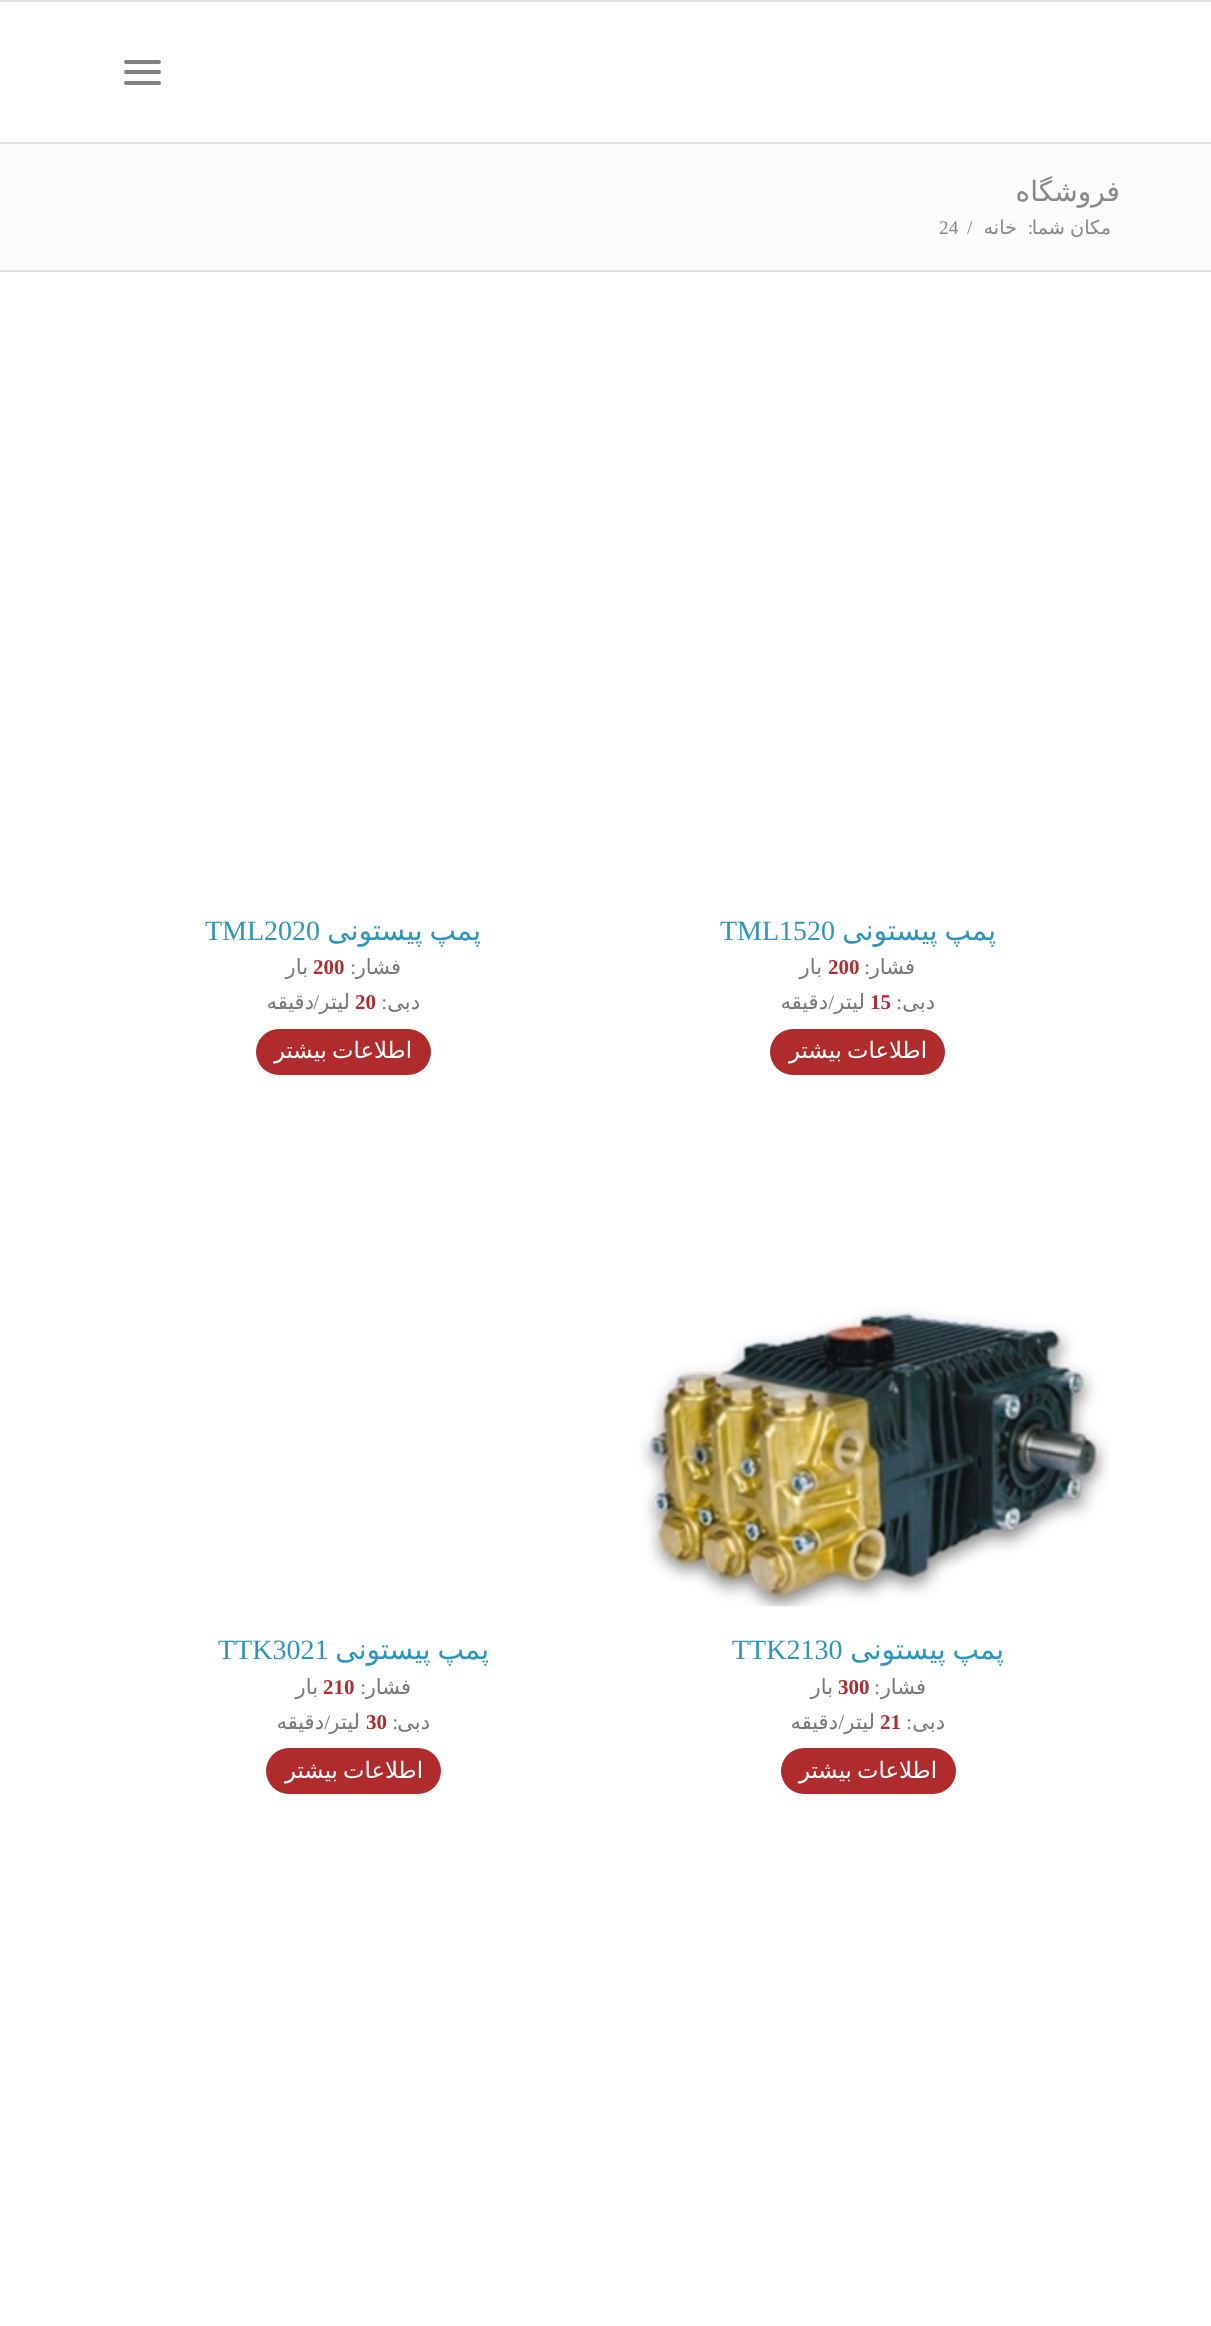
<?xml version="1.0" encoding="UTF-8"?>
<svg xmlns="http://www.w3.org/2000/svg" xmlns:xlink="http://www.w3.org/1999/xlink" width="1211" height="2326">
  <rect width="100%" height="100%" fill="#ffffff" />
  <rect width="1211" height="2" fill="#e1e1e1" />
  <rect y="142" width="1211" height="2" fill="#e1e1e1" />
  <rect x="124" y="70" width="37" height="4" rx="2" fill="#808080" />
  <rect x="124" y="60" width="37" height="4" rx="2" fill="#808080" />
  <rect x="124" y="81" width="37" height="4" rx="2" fill="#808080" />
  <rect y="144" width="1211" height="126" fill="#fcfcfc" />
  <rect y="270" width="1211" height="2" fill="#e1e1e1" />
  <rect x="770" y="1029" width="175" height="46" rx="23" fill="#b02b2c" />
  <rect x="256" y="1029" width="175" height="46" rx="23" fill="#b02b2c" />
  <image x="638" y="1306" width="472" height="301" xlink:href="image1.png" />
  <rect x="781" y="1748" width="175" height="46" rx="23" fill="#b02b2c" />
  <rect x="266" y="1748" width="175" height="46" rx="23" fill="#b02b2c" />
  <text x="1120" y="201" style="font-family: DejaVu Sans; font-size: 28px; direction: rtl; fill: #888888">فروشگاه</text>
  <text x="1111" y="234" word-spacing="-1" style="font-family: DejaVu Sans; font-size: 19.25px; direction: rtl; fill: #888888">مکان شما</text>
  <text x="1033" y="234" style="font-family: Liberation Serif; font-size: 19.25px; direction: rtl; fill: #888888">:</text>
  <text x="1017" y="234" style="font-family: DejaVu Sans; font-size: 19.25px; direction: rtl; fill: #888888">خانه</text>
  <text x="967" y="234" style="font-family: Liberation Serif; font-size: 19.25px; fill: #888888">/</text>
  <text x="939" y="234" style="font-family: Liberation Serif; font-size: 19.25px; fill: #888888">24</text>
  <text x="996" y="940" word-spacing="-2" style="font-family: DejaVu Sans; font-size: 28px; direction: rtl; fill: #2b95bd">پمپ پیستونی</text>
  <text x="720" y="940" style="font-family: Liberation Serif; font-size: 28px; fill: #2b95bd">TML1520</text>
  <text x="915" y="974" style="font-family: DejaVu Sans; font-size: 21px; direction: rtl; fill: #777777">فشار</text>
  <text x="870" y="974" style="font-family: Liberation Serif; font-size: 21px; direction: rtl; fill: #777777">:</text>
  <text x="828" y="974" style="font-family: Liberation Serif; font-size: 21px; font-weight: bold; fill: #b02b2c">200</text>
  <text x="822" y="974" style="font-family: DejaVu Sans; font-size: 21px; direction: rtl; fill: #777777">بار</text>
  <text x="935" y="1009" style="font-family: DejaVu Sans; font-size: 21px; direction: rtl; fill: #777777">دبی</text>
  <text x="902" y="1009" style="font-family: Liberation Serif; font-size: 21px; direction: rtl; fill: #777777">:</text>
  <text x="870" y="1009" style="font-family: Liberation Serif; font-size: 21px; font-weight: bold; fill: #b02b2c">15</text>
  <text x="834" y="1009" style="font-family: Liberation Serif; font-size: 21px; direction: rtl; fill: #777777">/</text>
  <text x="865" y="1009" style="font-family: DejaVu Sans; font-size: 21px; direction: rtl; fill: #777777">لیتر</text>
  <text x="828" y="1009" style="font-family: DejaVu Sans; font-size: 21px; direction: rtl; fill: #777777">دقیقه</text>
  <text x="927" y="1058" word-spacing="-2" style="font-family: DejaVu Sans; font-size: 22.75px; direction: rtl; fill: #ffffff">اطلاعات بیشتر</text>
  <text x="481" y="940" word-spacing="-2" style="font-family: DejaVu Sans; font-size: 28px; direction: rtl; fill: #2b95bd">پمپ پیستونی</text>
  <text x="205" y="940" style="font-family: Liberation Serif; font-size: 28px; fill: #2b95bd">TML2020</text>
  <text x="401" y="974" style="font-family: DejaVu Sans; font-size: 21px; direction: rtl; fill: #777777">فشار</text>
  <text x="356" y="974" style="font-family: Liberation Serif; font-size: 21px; direction: rtl; fill: #777777">:</text>
  <text x="313" y="974" style="font-family: Liberation Serif; font-size: 21px; font-weight: bold; fill: #b02b2c">200</text>
  <text x="308" y="974" style="font-family: DejaVu Sans; font-size: 21px; direction: rtl; fill: #777777">بار</text>
  <text x="420" y="1009" style="font-family: DejaVu Sans; font-size: 21px; direction: rtl; fill: #777777">دبی</text>
  <text x="387" y="1009" style="font-family: Liberation Serif; font-size: 21px; direction: rtl; fill: #777777">:</text>
  <text x="355" y="1009" style="font-family: Liberation Serif; font-size: 21px; font-weight: bold; fill: #b02b2c">20</text>
  <text x="319" y="1009" style="font-family: Liberation Serif; font-size: 21px; direction: rtl; fill: #777777">/</text>
  <text x="350" y="1009" style="font-family: DejaVu Sans; font-size: 21px; direction: rtl; fill: #777777">لیتر</text>
  <text x="314" y="1009" style="font-family: DejaVu Sans; font-size: 21px; direction: rtl; fill: #777777">دقیقه</text>
  <text x="412" y="1058" word-spacing="-2" style="font-family: DejaVu Sans; font-size: 22.75px; direction: rtl; fill: #ffffff">اطلاعات بیشتر</text>
  <text x="1004" y="1659" word-spacing="-2" style="font-family: DejaVu Sans; font-size: 28px; direction: rtl; fill: #2b95bd">پمپ پیستونی</text>
  <text x="732" y="1659" style="font-family: Liberation Serif; font-size: 28px; fill: #2b95bd">TTK2130</text>
  <text x="926" y="1694" style="font-family: DejaVu Sans; font-size: 21px; direction: rtl; fill: #777777">فشار</text>
  <text x="880" y="1694" style="font-family: Liberation Serif; font-size: 21px; direction: rtl; fill: #777777">:</text>
  <text x="838" y="1694" style="font-family: Liberation Serif; font-size: 21px; font-weight: bold; fill: #b02b2c">300</text>
  <text x="833" y="1694" style="font-family: DejaVu Sans; font-size: 21px; direction: rtl; fill: #777777">بار</text>
  <text x="945" y="1729" style="font-family: DejaVu Sans; font-size: 21px; direction: rtl; fill: #777777">دبی</text>
  <text x="912" y="1729" style="font-family: Liberation Serif; font-size: 21px; direction: rtl; fill: #777777">:</text>
  <text x="880" y="1729" style="font-family: Liberation Serif; font-size: 21px; font-weight: bold; fill: #b02b2c">21</text>
  <text x="844" y="1729" style="font-family: Liberation Serif; font-size: 21px; direction: rtl; fill: #777777">/</text>
  <text x="875" y="1729" style="font-family: DejaVu Sans; font-size: 21px; direction: rtl; fill: #777777">لیتر</text>
  <text x="838" y="1729" style="font-family: DejaVu Sans; font-size: 21px; direction: rtl; fill: #777777">دقیقه</text>
  <text x="937" y="1778" word-spacing="-2" style="font-family: DejaVu Sans; font-size: 22.75px; direction: rtl; fill: #ffffff">اطلاعات بیشتر</text>
  <text x="489" y="1659" word-spacing="-2" style="font-family: DejaVu Sans; font-size: 28px; direction: rtl; fill: #2b95bd">پمپ پیستونی</text>
  <text x="218" y="1659" style="font-family: Liberation Serif; font-size: 28px; fill: #2b95bd">TTK3021</text>
  <text x="366" y="1694" style="font-family: Liberation Serif; font-size: 21px; direction: rtl; fill: #777777">:</text>
  <text x="411" y="1694" style="font-family: DejaVu Sans; font-size: 21px; direction: rtl; fill: #777777">فشار</text>
  <text x="323" y="1694" style="font-family: Liberation Serif; font-size: 21px; font-weight: bold; fill: #b02b2c">210</text>
  <text x="318" y="1694" style="font-family: DejaVu Sans; font-size: 21px; direction: rtl; fill: #777777">بار</text>
  <text x="430" y="1729" style="font-family: DejaVu Sans; font-size: 21px; direction: rtl; fill: #777777">دبی</text>
  <text x="398" y="1729" style="font-family: Liberation Serif; font-size: 21px; direction: rtl; fill: #777777">:</text>
  <text x="366" y="1729" style="font-family: Liberation Serif; font-size: 21px; font-weight: bold; fill: #b02b2c">30</text>
  <text x="330" y="1729" style="font-family: Liberation Serif; font-size: 21px; direction: rtl; fill: #777777">/</text>
  <text x="360" y="1729" style="font-family: DejaVu Sans; font-size: 21px; direction: rtl; fill: #777777">لیتر</text>
  <text x="324" y="1729" style="font-family: DejaVu Sans; font-size: 21px; direction: rtl; fill: #777777">دقیقه</text>
  <text x="423" y="1778" word-spacing="-2" style="font-family: DejaVu Sans; font-size: 22.75px; direction: rtl; fill: #ffffff">اطلاعات بیشتر</text>
</svg>
